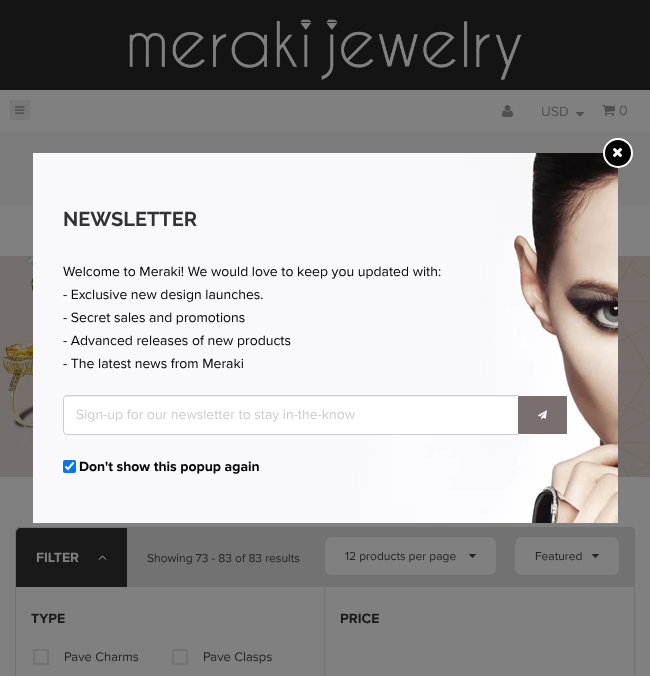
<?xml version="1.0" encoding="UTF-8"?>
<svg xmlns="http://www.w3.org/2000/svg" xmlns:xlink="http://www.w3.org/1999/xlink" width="650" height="676">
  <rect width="100%" height="100%" fill="#808080" />
  <rect width="650" height="90" fill="#141414" />
  <image x="129" y="19" width="393" height="61" xlink:href="image1.png" />
  <rect x="10" y="100" width="20" height="20" fill="#787878" />
  <image x="15" y="106" width="10" height="8" xlink:href="image2.png" />
  <image x="502" y="105" width="11" height="12" xlink:href="image3.png" />
  <image x="576" y="112" width="8" height="5" xlink:href="image4.png" />
  <image x="602" y="105" width="13" height="11" xlink:href="image5.png" />
  <rect y="132" width="650" height="74" fill="#7c7c7c" />
  <image x="0" y="256" width="650" height="221" xlink:href="image9.png" />
  <image x="33" y="153" width="585" height="370" xlink:href="image6.png" />
  <circle cx="618" cy="153" r="14" fill="#000000" stroke="#ffffff" stroke-width="2" />
  <image x="612" y="147" width="11" height="11" xlink:href="image7.png" />
  <rect x="63" y="395" width="505" height="40" rx="4" fill="#ffffff" />
  <path d="M 67 397 h 497 c 2 0 3 1 3 3 c 0 -2 -1 -4 -3 -4 h -497 c -2 0 -3 2 -3 4 c 0 -2 1 -3 3 -3 z" fill="#ececec" />
  <rect x="63.5" y="395.5" width="504" height="39" rx="3.5" fill="none" stroke="#cccccc" />
  <rect x="517.5" y="395.5" width="50" height="39" rx="1.5" fill="#7a6f6f" stroke="#ffffff" />
  <image x="538" y="410" width="9" height="10" xlink:href="image8.png" />
  <rect x="63" y="460" width="13" height="13" rx="2" fill="#0075ff" />
  <path d="M 65.5 466.5 l 2.5 2.5 l 5.5 -6.5" fill="none" stroke="#ffffff" stroke-width="2.1" />
  <path d="M 20 527 h 610 c 3 0 5 2 5 5 v 55 h -620 v -55 c 0 -3 2 -5 5 -5 z" fill="#727272" />
  <path d="M 20 527 h 610 c 3 0 5 2 5 5 v 55 h -620 v -55 c 0 -3 2 -5 5 -5 z m 0 1 h 610 c 2 0 4 2 4 4 v 55 h -618 v -55 c 0 -2 2 -4 4 -4 z" fill="#717171" fill-rule="evenodd" />
  <path d="M 21 528 h 106 v 59 h -111 v -54 c 0 -3 2 -5 5 -5 z" fill="#191919" />
  <image x="98" y="555" width="9" height="5" xlink:href="image10.png" />
  <rect x="325" y="537" width="171" height="38" rx="7" fill="#808080" />
  <image x="469" y="554" width="7" height="4" xlink:href="image11.png" />
  <rect x="515" y="537" width="104" height="38" rx="7" fill="#808080" />
  <image x="592" y="554" width="7" height="4" xlink:href="image11.png" />
  <path d="M 15 587 h 620 v 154 c 0 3 -2 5 -5 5 h -610 c -3 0 -5 -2 -5 -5 z m 1 0 h 618 v 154 c 0 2 -2 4 -4 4 h -610 c -2 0 -4 -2 -4 -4 z" fill="#717171" fill-rule="evenodd" />
  <rect x="324" y="587" width="1" height="89" fill="#717171" />
  <rect x="34" y="650" width="14" height="14" fill="none" stroke="#737373" stroke-width="2" />
  <rect x="173" y="650" width="14" height="14" fill="none" stroke="#737373" stroke-width="2" />
  <text x="541" y="116" style="font-family: Proxima Nova; font-size: 14px; fill: #515151">USD</text>
  <text x="619" y="115" style="font-family: Proxima Nova; font-size: 14px; fill: #515151">0</text>
  <text x="63" y="226" style="font-family: Raleway; font-size: 20px; font-weight: bold; fill: #333333">NEWSLETTER</text>
  <text x="63" y="276" style="font-family: Proxima Nova; font-size: 14px; fill: #000000">Welcome to Meraki! We would love to keep you updated with:</text>
  <text x="63" y="299" style="font-family: Proxima Nova; font-size: 14px; fill: #000000">- Exclusive new design launches.</text>
  <text x="63" y="322" style="font-family: Proxima Nova; font-size: 14px; fill: #000000">- Secret sales and promotions</text>
  <text x="63" y="345" style="font-family: Proxima Nova; font-size: 14px; fill: #000000">- Advanced releases of new products</text>
  <text x="63" y="368" style="font-family: Proxima Nova; font-size: 14px; fill: #000000">- The latest news from Meraki</text>
  <text x="76" y="419" style="font-family: Proxima Nova; font-size: 14px; fill: #cccccc">Sign-up for our newsletter to stay in-the-know</text>
  <text x="79" y="471" style="font-family: Proxima Nova; font-size: 14px; font-weight: bold; fill: #000000">Don't show this popup again</text>
  <text x="36" y="562" style="font-family: Proxima Nova; font-size: 14px; font-weight: bold; fill: #808080">FILTER</text>
  <text x="147" y="562" style="font-family: Proxima Nova; font-size: 12px; fill: #232323">Showing 73 - 83 of 83 results</text>
  <text x="345" y="560" style="font-family: Proxima Nova; font-size: 12px; fill: #232323">12 products per page</text>
  <text x="535" y="560" style="font-family: Proxima Nova; font-size: 12px; fill: #232323">Featured</text>
  <text x="31" y="623" style="font-family: Proxima Nova; font-size: 14px; font-weight: bold; fill: #191919">TYPE</text>
  <text x="64" y="661" style="font-family: Proxima Nova; font-size: 13px; fill: #232323">Pave Charms</text>
  <text x="203" y="661" style="font-family: Proxima Nova; font-size: 13px; fill: #232323">Pave Clasps</text>
  <text x="340" y="623" style="font-family: Proxima Nova; font-size: 14px; font-weight: bold; fill: #191919">PRICE</text>
</svg>
